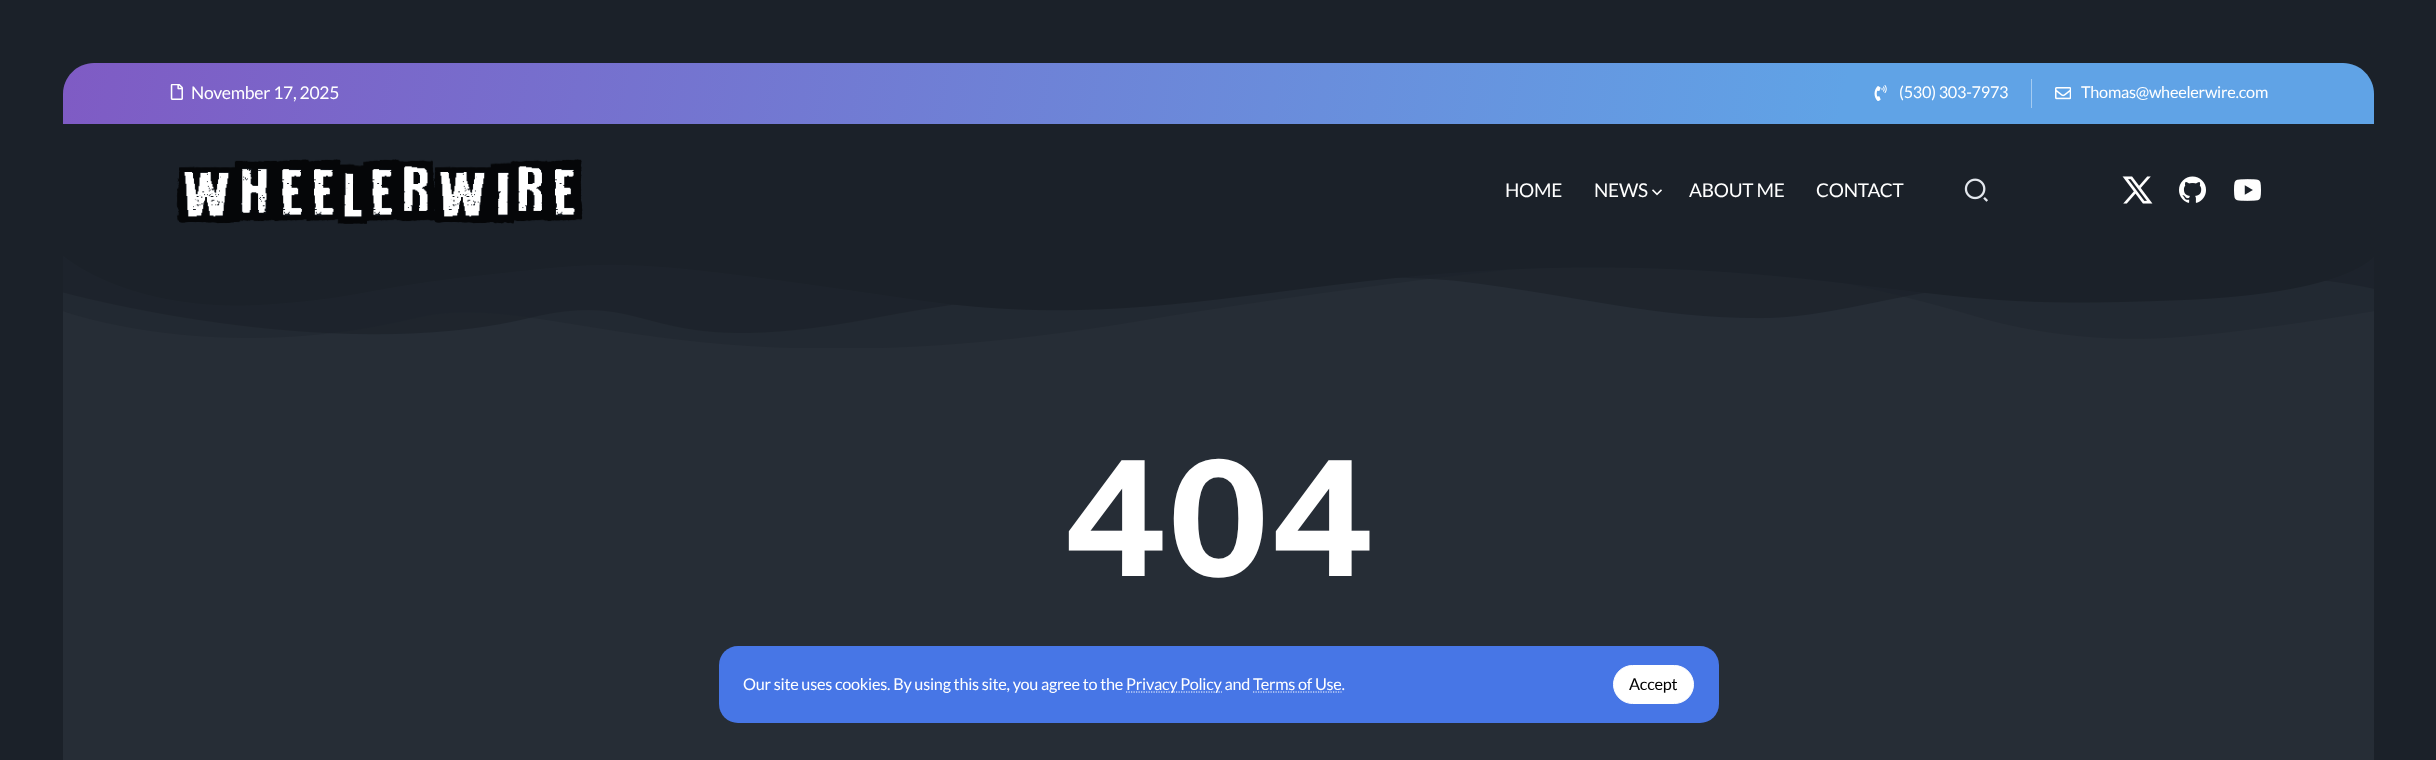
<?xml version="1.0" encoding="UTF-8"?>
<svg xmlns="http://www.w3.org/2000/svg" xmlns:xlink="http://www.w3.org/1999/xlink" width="2436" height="760">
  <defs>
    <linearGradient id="g1" gradientUnits="userSpaceOnUse" x1="92" y1="-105" x2="2344" y2="292"><stop offset="0" stop-color="#7f5bc4" /><stop offset="0.77" stop-color="#60a3e6" /></linearGradient>
  </defs>
  <rect width="100%" height="100%" fill="#1b2129" />
  <rect x="63" y="63" width="2311" height="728" rx="31" fill="#262d36" />
  <path d="M 94 63 h 2249 c 17 0 31 14 31 31 v 30 h -2311 v -30 c 0 -17 14 -31 31 -31 z" fill="url(#g1)" />
  <image x="170" y="84" width="13" height="16" xlink:href="image1.png" />
  <image x="1874" y="85" width="13" height="16" xlink:href="image2.png" />
  <rect x="2031" y="79" width="1" height="29" fill="#a4cbf1" />
  <image x="2055" y="87" width="16" height="13" xlink:href="image3.png" />
  <rect x="63" y="124" width="2311" height="132" fill="#1b2129" />
  <image x="176" y="159" width="407" height="65" xlink:href="image4.png" />
  <image x="1652" y="189" width="10" height="7" xlink:href="image5.png" />
  <image x="1964" y="178" width="24" height="24" xlink:href="image6.png" />
  <image x="2122" y="176" width="31" height="28" xlink:href="image7.png" />
  <image x="2179" y="176" width="27" height="27" xlink:href="image8.png" />
  <image x="2234" y="179" width="27" height="22" xlink:href="image9.png" />
  <image x="63" y="256" width="2311" height="92" xlink:href="image10.png" />
  <rect x="719" y="646" width="1000" height="77" rx="19" fill="#4776e6" />
  <path d="M 1126 692 h 96" fill="none" stroke="#ffffff" stroke-width="1.2" stroke-dasharray="1.25 1.25" />
  <path d="M 1253 692 h 88.5" fill="none" stroke="#ffffff" stroke-width="1.2" stroke-dasharray="1.25 1.25" />
  <rect x="1613.5" y="665.5" width="80" height="38" rx="19" fill="#ffffff" stroke="#ffffff" />
  <text x="191" y="99" style="font-family: Lato; font-size: 17.5px; letter-spacing: -0.25px; fill: #ffffff">November 17, 2025</text>
  <text x="1899" y="98" style="font-family: Lato; font-size: 16.25px; letter-spacing: -0.25px; fill: #ffffff">(530) 303-7973</text>
  <text x="2081" y="98" style="font-family: Lato; font-size: 16.25px; letter-spacing: -0.25px; fill: #ffffff">Thomas@wheelerwire.com</text>
  <text x="1505" y="197" style="font-family: Lato; font-size: 19px; letter-spacing: -0.25px; fill: #ffffff">HOME</text>
  <text x="1594" y="197" style="font-family: Lato; font-size: 19px; letter-spacing: -0.25px; fill: #ffffff">NEWS</text>
  <text x="1689" y="197" style="font-family: Lato; font-size: 19px; letter-spacing: -0.25px; fill: #ffffff">ABOUT ME</text>
  <text x="1816" y="197" style="font-family: Lato; font-size: 19px; letter-spacing: -0.25px; fill: #ffffff">CONTACT</text>
  <text x="1062" y="576" style="font-family: Public Sans; font-size: 160px; font-weight: 100; letter-spacing: -0.25px; fill: #ffffff">404</text>
  <text x="743" y="690" style="font-family: Lato; font-size: 16.25px; letter-spacing: -0.25px; fill: #ffffff">Our site uses cookies. By using this site, you agree to the</text>
  <text x="1126" y="690" style="font-family: Lato; font-size: 16.25px; letter-spacing: -0.25px; fill: #ffffff">Privacy Policy and Terms of Use.</text>
  <text x="1629" y="690" style="font-family: Lato; font-size: 16.25px; letter-spacing: -0.25px; fill: #000000">Accept</text>
</svg>
